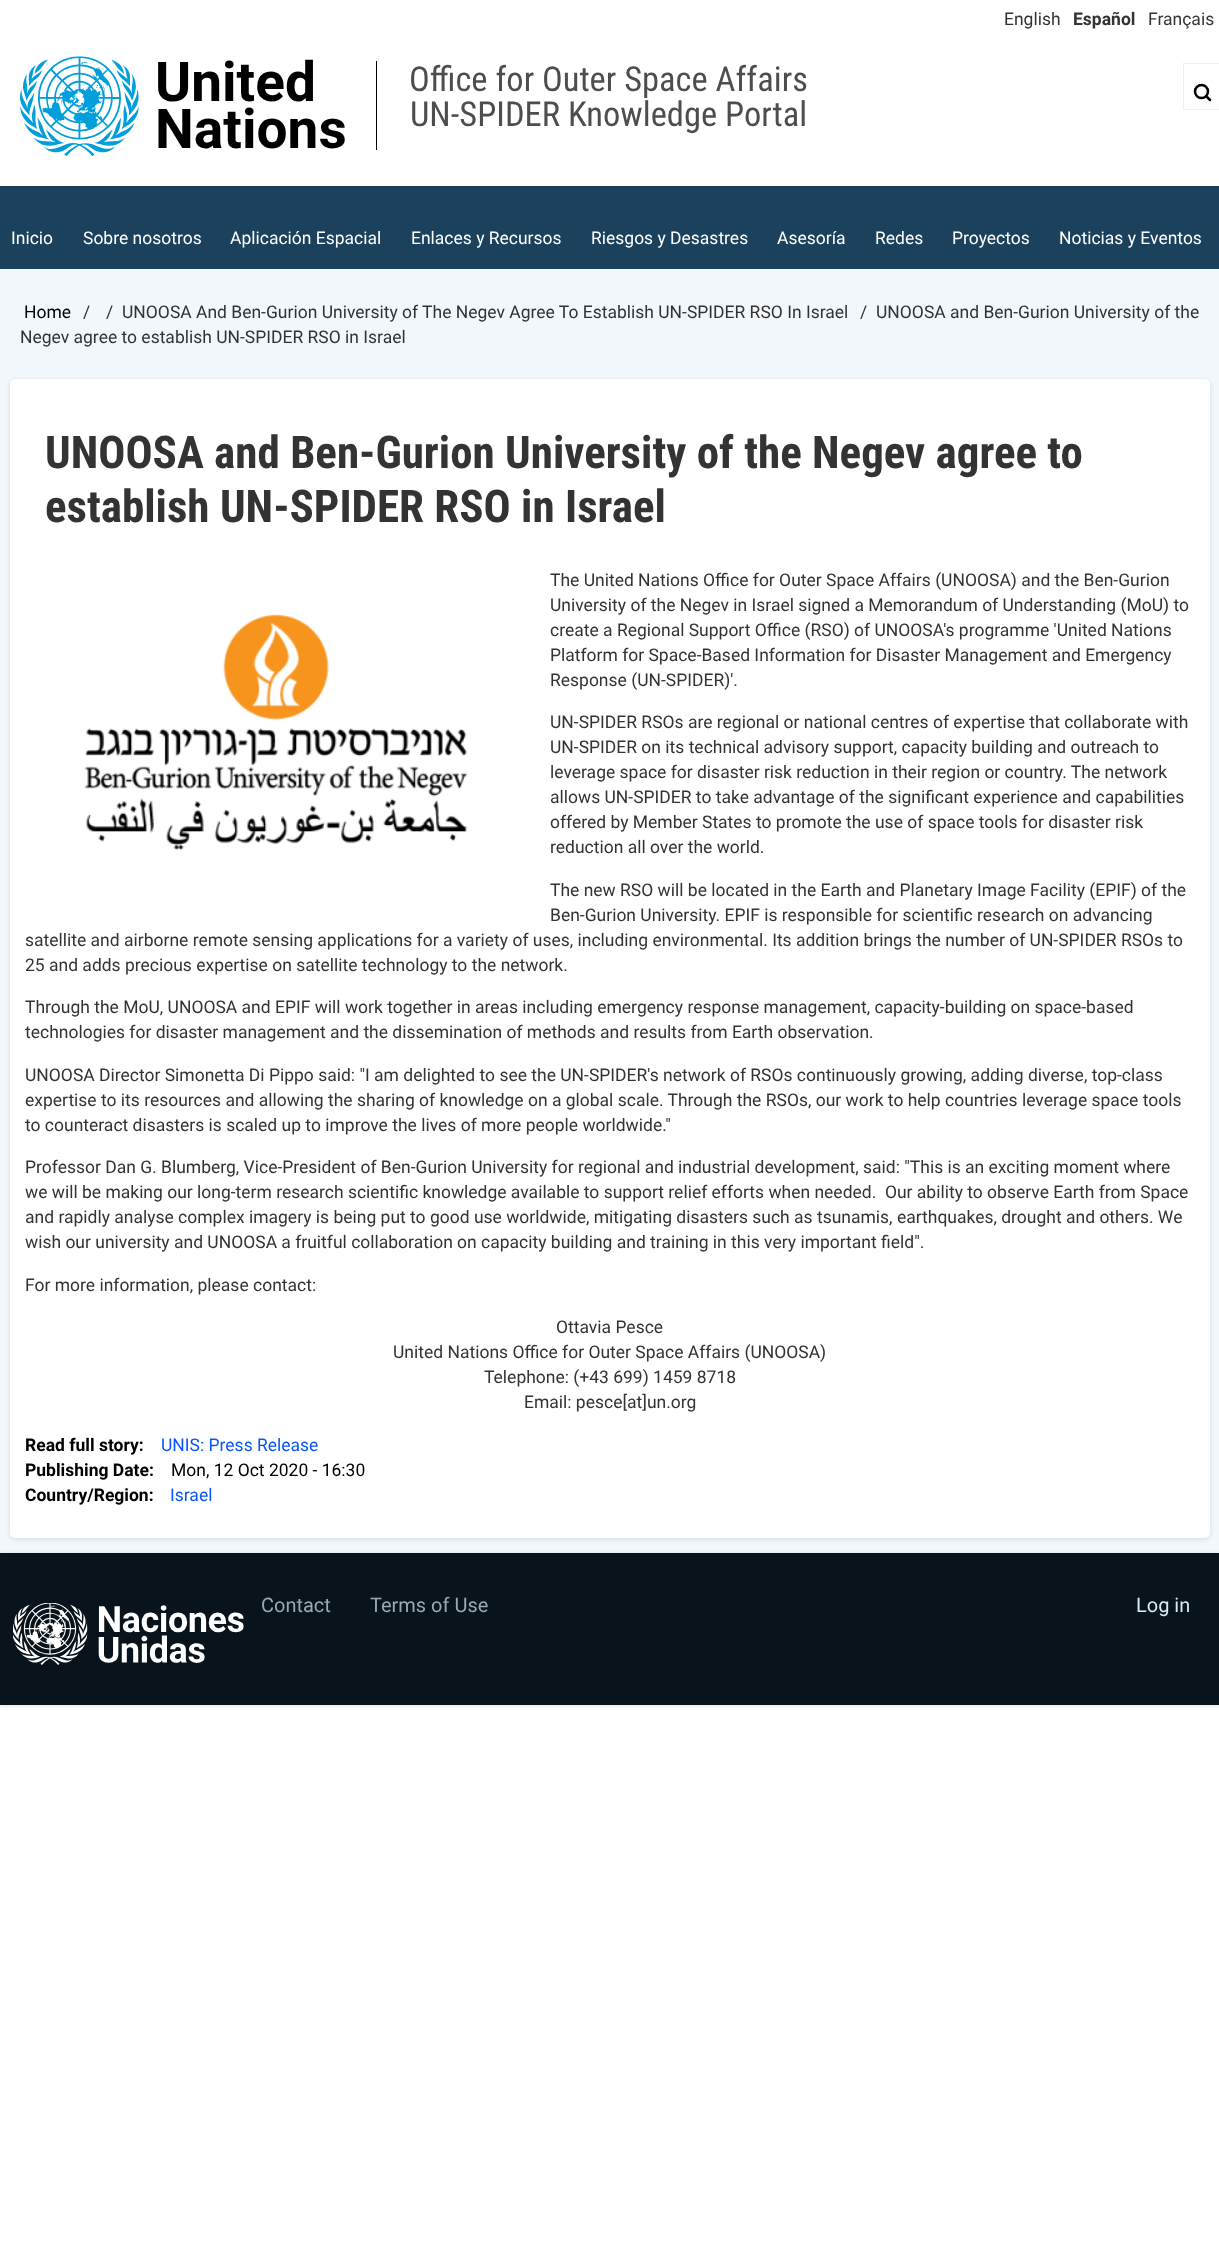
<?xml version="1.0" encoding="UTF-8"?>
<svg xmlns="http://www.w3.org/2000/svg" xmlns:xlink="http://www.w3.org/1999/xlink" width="1219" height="2254">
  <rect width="100%" height="100%" fill="#ffffff" />
  <image x="20" y="56" width="119" height="100" xlink:href="image1.png" />
  <rect x="376" y="61" width="1" height="89" fill="#000000" />
  <rect x="1183" y="63" width="36" height="1" fill="#e5f0f8" />
  <rect x="1183" y="109" width="36" height="1" fill="#e5f0f8" />
  <rect x="1183" y="63" width="1" height="47" fill="#e5f0f8" />
  <circle cx="1201.5" cy="91.5" r="6.5" fill="none" stroke="#000000" stroke-width="2.5" />
  <path d="M 1210 100 l -3.5 -3.5" fill="none" stroke="#000000" stroke-width="2.5" stroke-linecap="round" stroke-linejoin="round" />
  <rect y="186" width="1219" height="83" fill="#1b415d" />
  <rect y="269" width="1219" height="1284" fill="#f2f7fb" />
  <rect x="10" y="380" width="1200" height="1159" rx="5" fill="#000000" fill-opacity="0.12" filter="blur(2px)" />
  <rect x="10" y="379" width="1200" height="1159" rx="5" fill="#ffffff" />
  <image x="84" y="613" width="384" height="238" xlink:href="image2.png" />
  <rect y="1554" width="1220" height="152" fill="#000000" fill-opacity="0.12" filter="blur(2px)" />
  <rect y="1553" width="1219" height="152" fill="#08131b" />
  <image x="13" y="1603" width="231" height="62" xlink:href="image3.png" />
  <text x="1004" y="25" style="font-family: Roboto; font-size: 17.5px; fill: #333333">English</text>
  <text x="1073" y="25" style="font-family: Roboto; font-size: 17.5px; font-weight: bold; fill: #333333">Español</text>
  <text x="1148" y="25" style="font-family: Roboto; font-size: 17.5px; fill: #333333">Français</text>
  <text x="155" y="101" style="font-family: Roboto; font-size: 55px; font-weight: bold; fill: #000000">United</text>
  <text x="155" y="148" style="font-family: Roboto; font-size: 55px; font-weight: bold; fill: #000000">Nations</text>
  <text x="409" y="91" style="font-family: Roboto Condensed; font-size: 34.5px; fill: #4d4d4d">Office for Outer Space Affairs</text>
  <text x="410" y="126" style="font-family: Roboto Condensed; font-size: 34.5px; fill: #4d4d4d">UN-SPIDER Knowledge Portal</text>
  <text x="11" y="244" style="font-family: Roboto; font-size: 17.5px; fill: #ffffff">Inicio</text>
  <text x="83" y="244" style="font-family: Roboto; font-size: 17.5px; fill: #ffffff">Sobre nosotros</text>
  <text x="230" y="244" style="font-family: Roboto; font-size: 17.5px; fill: #ffffff">Aplicación Espacial</text>
  <text x="411" y="244" style="font-family: Roboto; font-size: 17.5px; fill: #ffffff">Enlaces y Recursos</text>
  <text x="591" y="244" style="font-family: Roboto; font-size: 17.5px; fill: #ffffff">Riesgos y Desastres</text>
  <text x="777" y="244" style="font-family: Roboto; font-size: 17.5px; fill: #ffffff">Asesoría</text>
  <text x="875" y="244" style="font-family: Roboto; font-size: 17.5px; fill: #ffffff">Redes</text>
  <text x="952" y="244" style="font-family: Roboto; font-size: 17.5px; fill: #ffffff">Proyectos</text>
  <text x="1059" y="244" style="font-family: Roboto; font-size: 17.5px; fill: #ffffff">Noticias y Eventos</text>
  <text x="24" y="318" style="font-family: Roboto; font-size: 17.5px; fill: #000000">Home</text>
  <text x="83" y="318" style="font-family: Roboto; font-size: 17.5px; fill: #333333">/</text>
  <text x="106" y="318" style="font-family: Roboto; font-size: 17.5px; fill: #333333">/</text>
  <text x="122" y="318" style="font-family: Roboto; font-size: 17.5px; fill: #333333">UNOOSA And Ben-Gurion University of The Negev Agree To Establish UN-SPIDER RSO In Israel</text>
  <text x="860" y="318" style="font-family: Roboto; font-size: 17.5px; fill: #333333">/</text>
  <text x="876" y="318" style="font-family: Roboto; font-size: 17.5px; fill: #333333">UNOOSA and Ben-Gurion University of the</text>
  <text x="20" y="343" style="font-family: Roboto; font-size: 17.5px; fill: #333333">Negev agree to establish UN-SPIDER RSO in Israel</text>
  <text x="45" y="468" style="font-family: Roboto Condensed; font-size: 45px; font-weight: bold; fill: #333333">UNOOSA and Ben-Gurion University of the Negev agree to</text>
  <text x="45" y="522" style="font-family: Roboto Condensed; font-size: 45px; font-weight: bold; fill: #333333">establish UN-SPIDER RSO in Israel</text>
  <text x="550" y="586" style="font-family: Roboto; font-size: 17.5px; fill: #333333">The United Nations Office for Outer Space Affairs (UNOOSA) and the Ben-Gurion</text>
  <text x="550" y="611" style="font-family: Roboto; font-size: 17.5px; fill: #333333">University of the Negev in Israel signed a Memorandum of Understanding (MoU) to</text>
  <text x="550" y="636" style="font-family: Roboto; font-size: 17.5px; fill: #333333">create a Regional Support Office (RSO) of UNOOSA's programme 'United Nations</text>
  <text x="550" y="661" style="font-family: Roboto; font-size: 17.5px; fill: #333333">Platform for Space-Based Information for Disaster Management and Emergency</text>
  <text x="550" y="686" style="font-family: Roboto; font-size: 17.5px; fill: #333333">Response (UN-SPIDER)'.</text>
  <text x="550" y="728" style="font-family: Roboto; font-size: 17.5px; fill: #333333">UN-SPIDER RSOs are regional or national centres of expertise that collaborate with</text>
  <text x="550" y="753" style="font-family: Roboto; font-size: 17.5px; fill: #333333">UN-SPIDER on its technical advisory support, capacity building and outreach to</text>
  <text x="550" y="778" style="font-family: Roboto; font-size: 17.5px; fill: #333333">leverage space for disaster risk reduction in their region or country. The network</text>
  <text x="550" y="803" style="font-family: Roboto; font-size: 17.5px; fill: #333333">allows UN-SPIDER to take advantage of the significant experience and capabilities</text>
  <text x="550" y="828" style="font-family: Roboto; font-size: 17.5px; fill: #333333">offered by Member States to promote the use of space tools for disaster risk</text>
  <text x="550" y="853" style="font-family: Roboto; font-size: 17.5px; fill: #333333">reduction all over the world.</text>
  <text x="550" y="896" style="font-family: Roboto; font-size: 17.5px; fill: #333333">The new RSO will be located in the Earth and Planetary Image Facility (EPIF) of the</text>
  <text x="550" y="921" style="font-family: Roboto; font-size: 17.5px; fill: #333333">Ben-Gurion University. EPIF is responsible for scientific research on advancing</text>
  <text x="25" y="946" style="font-family: Roboto; font-size: 17.5px; fill: #333333">satellite and airborne remote sensing applications for a variety of uses, including environmental. Its addition brings the number of UN-SPIDER RSOs to</text>
  <text x="25" y="971" style="font-family: Roboto; font-size: 17.5px; fill: #333333">25 and adds precious expertise on satellite technology to the network.</text>
  <text x="25" y="1013" style="font-family: Roboto; font-size: 17.5px; fill: #333333">Through the MoU, UNOOSA and EPIF will work together in areas including emergency response management, capacity-building on space-based</text>
  <text x="25" y="1038" style="font-family: Roboto; font-size: 17.5px; fill: #333333">technologies for disaster management and the dissemination of methods and results from Earth observation.</text>
  <text x="25" y="1081" style="font-family: Roboto; font-size: 17.5px; fill: #333333">UNOOSA Director Simonetta Di Pippo said: "I am delighted to see the UN-SPIDER's network of RSOs continuously growing, adding diverse, top-class</text>
  <text x="25" y="1106" style="font-family: Roboto; font-size: 17.5px; fill: #333333">expertise to its resources and allowing the sharing of knowledge on a global scale. Through the RSOs, our work to help countries leverage space tools</text>
  <text x="25" y="1131" style="font-family: Roboto; font-size: 17.5px; fill: #333333">to counteract disasters is scaled up to improve the lives of more people worldwide."</text>
  <text x="25" y="1173" style="font-family: Roboto; font-size: 17.5px; fill: #333333">Professor Dan G. Blumberg, Vice-President of Ben-Gurion University for regional and industrial development, said: "This is an exciting moment where</text>
  <text x="25" y="1198" style="font-family: Roboto; font-size: 17.5px; fill: #333333" xml:space="preserve">we will be making our long-term research scientific knowledge available to support relief efforts when needed.  Our ability to observe Earth from Space</text>
  <text x="25" y="1223" style="font-family: Roboto; font-size: 17.5px; fill: #333333">and rapidly analyse complex imagery is being put to good use worldwide, mitigating disasters such as tsunamis, earthquakes, drought and others. We</text>
  <text x="25" y="1248" style="font-family: Roboto; font-size: 17.5px; fill: #333333">wish our university and UNOOSA a fruitful collaboration on capacity building and training in this very important field".</text>
  <text x="25" y="1291" style="font-family: Roboto; font-size: 17.5px; fill: #333333">For more information, please contact:</text>
  <text x="556" y="1333" style="font-family: Roboto; font-size: 17.5px; fill: #333333">Ottavia Pesce</text>
  <text x="393" y="1358" style="font-family: Roboto; font-size: 17.5px; fill: #333333">United Nations Office for Outer Space Affairs (UNOOSA)</text>
  <text x="484" y="1383" style="font-family: Roboto; font-size: 17.5px; fill: #333333">Telephone: (+43 699) 1459 8718</text>
  <text x="524" y="1408" style="font-family: Roboto; font-size: 17.5px; fill: #333333">Email: pesce[at]un.org</text>
  <text x="25" y="1451" style="font-family: Roboto; font-size: 17.5px; font-weight: bold; fill: #000000">Read full story:</text>
  <text x="161" y="1451" style="font-family: Roboto; font-size: 17.5px; fill: #0855fa">UNIS: Press Release</text>
  <text x="25" y="1476" style="font-family: Roboto; font-size: 17.5px; font-weight: bold; fill: #000000">Publishing Date:</text>
  <text x="171" y="1476" style="font-family: Roboto; font-size: 17.5px; fill: #000000">Mon, 12 Oct 2020 - 16:30</text>
  <text x="25" y="1501" style="font-family: Roboto; font-size: 17.5px; font-weight: bold; fill: #000000">Country/Region:</text>
  <text x="170" y="1501" style="font-family: Roboto; font-size: 17.5px; fill: #0855fa">Israel</text>
  <text x="261" y="1612" style="font-family: Roboto; font-size: 20px; fill: #9aa8b3">Contact</text>
  <text x="370" y="1612" style="font-family: Roboto; font-size: 20px; fill: #9aa8b3">Terms of Use</text>
  <text x="1136" y="1612" style="font-family: Roboto; font-size: 20px; fill: #d8e8f4">Log in</text>
</svg>
